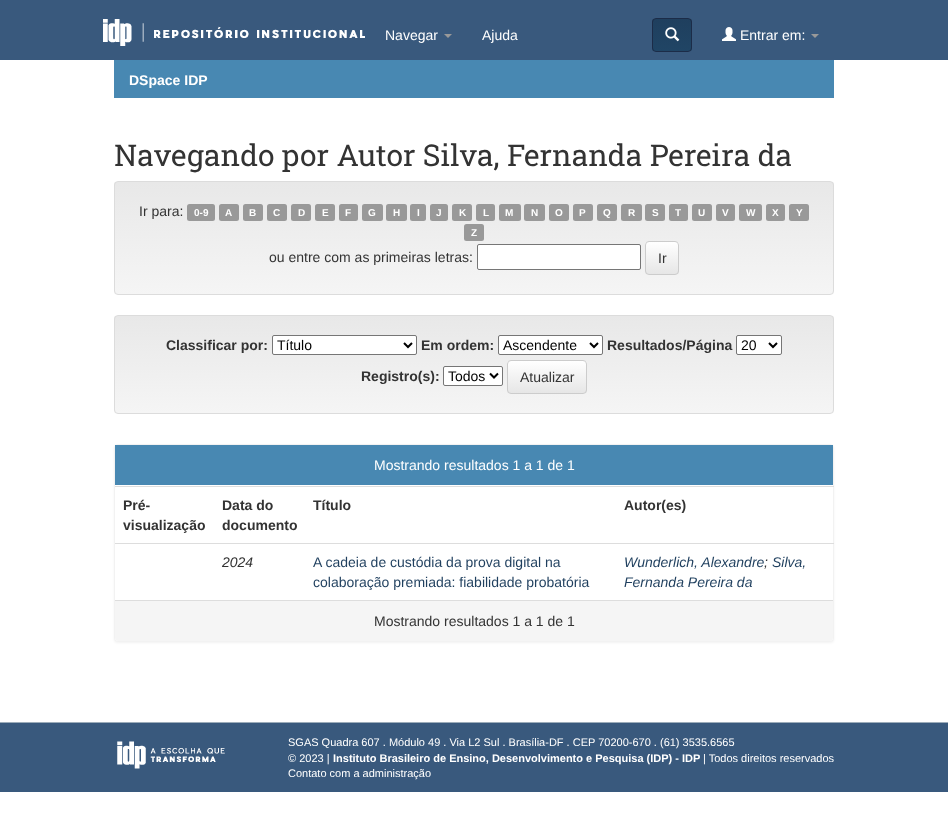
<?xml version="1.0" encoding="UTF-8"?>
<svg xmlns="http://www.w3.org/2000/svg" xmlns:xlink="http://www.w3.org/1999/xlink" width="948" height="816">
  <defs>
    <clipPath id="clip1"><rect x="652" y="18" width="40" height="34" rx="4" /></clipPath>
    <linearGradient id="g1" gradientUnits="userSpaceOnUse" x1="672" y1="19" x2="672" y2="51"><stop offset="0" stop-color="#1f3f5e" /><stop offset="1" stop-color="#204565" /></linearGradient>
    <clipPath id="clip2"><rect x="114" y="181" width="720" height="114" rx="4" /></clipPath>
    <linearGradient id="g2" gradientUnits="userSpaceOnUse" x1="474" y1="182" x2="474" y2="294"><stop offset="0" stop-color="#e8e8e8" /><stop offset="1" stop-color="#f5f5f5" /></linearGradient>
    <clipPath id="clip3"><rect x="645" y="241" width="34" height="34" rx="4" /></clipPath>
    <linearGradient id="g3" gradientUnits="userSpaceOnUse" x1="662" y1="242" x2="662" y2="274"><stop offset="0" stop-color="#ffffff" /><stop offset="1" stop-color="#e6e6e6" /></linearGradient>
    <clipPath id="clip4"><rect x="114" y="315" width="720" height="99" rx="4" /></clipPath>
    <linearGradient id="g4" gradientUnits="userSpaceOnUse" x1="474" y1="316" x2="474" y2="413"><stop offset="0" stop-color="#e8e8e8" /><stop offset="1" stop-color="#f5f5f5" /></linearGradient>
    <clipPath id="clip5"><rect x="507" y="360" width="80" height="34" rx="4" /></clipPath>
    <linearGradient id="g5" gradientUnits="userSpaceOnUse" x1="547" y1="361" x2="547" y2="393"><stop offset="0" stop-color="#ffffff" /><stop offset="1" stop-color="#e6e6e6" /></linearGradient>
  </defs>
  <rect width="100%" height="100%" fill="#ffffff" />
  <rect width="948" height="60" fill="#39597d" />
  <image x="103" y="19" width="262" height="27" xlink:href="image1.png" />
  <path d="M 444 34 h 8 l -4 4 z" fill="#999999" />
  <g clip-path="url(#clip1)">
    <rect x="652" y="19" width="40" height="32" fill="url(#g1)" />
  </g>
  <rect x="652.5" y="18.5" width="39" height="33" rx="3.5" fill="none" stroke="#1c2c48" />
  <image x="665" y="27" width="15" height="15" xlink:href="image2.png" />
  <image x="722" y="27" width="14" height="14" xlink:href="image3.png" />
  <path d="M 811 34 h 8 l -4 4 z" fill="#999999" />
  <rect x="114" y="60" width="720" height="38" fill="#4888b2" />
  <g clip-path="url(#clip2)">
    <rect x="114" y="182" width="720" height="112" fill="url(#g2)" />
  </g>
  <rect x="114.5" y="181.5" width="719" height="113" rx="3.5" fill="none" stroke="#dcdcdc" />
  <rect x="187" y="204" width="28" height="17" rx="2.5" fill="#999999" />
  <rect x="219" y="204" width="20" height="17" rx="2.5" fill="#999999" />
  <rect x="243" y="204" width="20" height="17" rx="2.5" fill="#999999" />
  <rect x="267" y="204" width="20" height="17" rx="2.5" fill="#999999" />
  <rect x="291" y="204" width="20" height="17" rx="2.5" fill="#999999" />
  <rect x="315" y="204" width="20" height="17" rx="2.5" fill="#999999" />
  <rect x="339" y="204" width="19" height="17" rx="2.5" fill="#999999" />
  <rect x="362" y="204" width="21" height="17" rx="2.5" fill="#999999" />
  <rect x="386" y="204" width="21" height="17" rx="2.5" fill="#999999" />
  <rect x="410" y="204" width="16" height="17" rx="2.5" fill="#999999" />
  <rect x="430" y="204" width="18" height="17" rx="2.5" fill="#999999" />
  <rect x="452" y="204" width="20" height="17" rx="2.5" fill="#999999" />
  <rect x="476" y="204" width="19" height="17" rx="2.5" fill="#999999" />
  <rect x="499" y="204" width="22" height="17" rx="2.5" fill="#999999" />
  <rect x="524" y="204" width="21" height="17" rx="2.5" fill="#999999" />
  <rect x="549" y="204" width="20" height="17" rx="2.5" fill="#999999" />
  <rect x="573" y="204" width="20" height="17" rx="2.5" fill="#999999" />
  <rect x="597" y="204" width="20" height="17" rx="2.5" fill="#999999" />
  <rect x="621" y="204" width="21" height="17" rx="2.5" fill="#999999" />
  <rect x="645" y="204" width="20" height="17" rx="2.5" fill="#999999" />
  <rect x="669" y="204" width="19" height="17" rx="2.5" fill="#999999" />
  <rect x="692" y="204" width="20" height="17" rx="2.5" fill="#999999" />
  <rect x="716" y="204" width="19" height="17" rx="2.5" fill="#999999" />
  <rect x="739" y="204" width="23" height="17" rx="2.5" fill="#999999" />
  <rect x="766" y="204" width="19" height="17" rx="2.5" fill="#999999" />
  <rect x="789" y="204" width="20" height="17" rx="2.5" fill="#999999" />
  <rect x="464" y="224" width="20" height="17" rx="2.5" fill="#999999" />
  <rect x="477.5" y="244.5" width="163" height="25" rx="1.5" fill="#ffffff" stroke="#767676" />
  <g clip-path="url(#clip3)">
    <rect x="645" y="242" width="34" height="32" fill="url(#g3)" />
  </g>
  <rect x="645.5" y="241.5" width="33" height="33" rx="3.5" fill="none" stroke="#cccccc" />
  <g clip-path="url(#clip4)">
    <rect x="114" y="316" width="720" height="97" fill="url(#g4)" />
  </g>
  <rect x="114.5" y="315.5" width="719" height="98" rx="3.5" fill="none" stroke="#dcdcdc" />
  <rect x="272.5" y="335.5" width="144" height="19" rx="1.5" fill="#ffffff" stroke="#767676" />
  <path d="M 404 343 l 4 4 l 4 -4" fill="none" stroke="#000000" stroke-width="2" />
  <rect x="498.5" y="335.5" width="104" height="19" rx="1.5" fill="#ffffff" stroke="#767676" />
  <path d="M 590 343 l 4 4 l 4 -4" fill="none" stroke="#000000" stroke-width="2" />
  <rect x="736.5" y="335.5" width="45" height="19" rx="1.5" fill="#ffffff" stroke="#767676" />
  <path d="M 769 343 l 4 4 l 4 -4" fill="none" stroke="#000000" stroke-width="2" />
  <rect x="443.5" y="366.5" width="59" height="19" rx="1.5" fill="#ffffff" stroke="#767676" />
  <path d="M 490 373.5 l 4 4 l 4 -4" fill="none" stroke="#000000" stroke-width="2" />
  <g clip-path="url(#clip5)">
    <rect x="507" y="361" width="80" height="32" fill="url(#g5)" />
  </g>
  <rect x="507.5" y="360.5" width="79" height="33" rx="3.5" fill="none" stroke="#cccccc" />
  <rect x="114" y="445" width="720" height="198" rx="4" fill="#000000" fill-opacity="0.05" filter="blur(1px)" />
  <rect x="114.5" y="444.5" width="719" height="197" rx="3.5" fill="#ffffff" stroke="#f2f2f2" />
  <rect x="115" y="445" width="718" height="40" fill="#4888b2" />
  <rect x="115" y="486" width="719" height="1" fill="#dddddd" />
  <rect x="115" y="543" width="719" height="1" fill="#dddddd" />
  <path d="M 115 600 h 718 v 38 c 0 1.5 -1.5 3 -3 3 h -712 c -1.5 0 -3 -1.5 -3 -3 z" fill="#f5f5f5" />
  <rect x="115" y="600" width="718" height="1" fill="#dddddd" />
  <rect y="723" width="948" height="69" fill="#39597d" />
  <rect y="722" width="948" height="1" fill="#9cacba" />
  <image x="117" y="741" width="108" height="28" xlink:href="image4.png" />
  <text x="385" y="40" style="font-family: Liberation Sans; font-size: 14px; fill: #ffffff">Navegar</text>
  <text x="482" y="40" style="font-family: Liberation Sans; font-size: 14px; fill: #ffffff">Ajuda</text>
  <text x="740" y="40" style="font-family: Liberation Sans; font-size: 14px; fill: #ffffff">Entrar em:</text>
  <text x="129" y="85" style="font-family: Liberation Sans; font-size: 14px; font-weight: bold; fill: #ffffff">DSpace IDP</text>
  <text x="114" y="166" style="font-family: Roboto Slab; font-size: 30px; fill: #333333">Navegando por Autor Silva, Fernanda Pereira da</text>
  <text x="139" y="216" style="font-family: Liberation Sans; font-size: 14px; fill: #333333">Ir para:</text>
  <text x="194" y="216" style="font-family: Liberation Sans; font-size: 10px; font-weight: bold; fill: #ffffff">0-9</text>
  <text x="225" y="216" style="font-family: Liberation Sans; font-size: 10px; font-weight: bold; fill: #ffffff">A</text>
  <text x="249" y="216" style="font-family: Liberation Sans; font-size: 10px; font-weight: bold; fill: #ffffff">B</text>
  <text x="273" y="216" style="font-family: Liberation Sans; font-size: 10px; font-weight: bold; fill: #ffffff">C</text>
  <text x="298" y="216" style="font-family: Liberation Sans; font-size: 10px; font-weight: bold; fill: #ffffff">D</text>
  <text x="322" y="216" style="font-family: Liberation Sans; font-size: 10px; font-weight: bold; fill: #ffffff">E</text>
  <text x="345" y="216" style="font-family: Liberation Sans; font-size: 10px; font-weight: bold; fill: #ffffff">F</text>
  <text x="368" y="216" style="font-family: Liberation Sans; font-size: 10px; font-weight: bold; fill: #ffffff">G</text>
  <text x="393" y="216" style="font-family: Liberation Sans; font-size: 10px; font-weight: bold; fill: #ffffff">H</text>
  <text x="417" y="216" style="font-family: Liberation Sans; font-size: 10px; font-weight: bold; fill: #ffffff">I</text>
  <text x="436" y="216" style="font-family: Liberation Sans; font-size: 10px; font-weight: bold; fill: #ffffff">J</text>
  <text x="459" y="216" style="font-family: Liberation Sans; font-size: 10px; font-weight: bold; fill: #ffffff">K</text>
  <text x="483" y="216" style="font-family: Liberation Sans; font-size: 10px; font-weight: bold; fill: #ffffff">L</text>
  <text x="505" y="216" style="font-family: Liberation Sans; font-size: 10px; font-weight: bold; fill: #ffffff">M</text>
  <text x="531" y="216" style="font-family: Liberation Sans; font-size: 10px; font-weight: bold; fill: #ffffff">N</text>
  <text x="555" y="216" style="font-family: Liberation Sans; font-size: 10px; font-weight: bold; fill: #ffffff">O</text>
  <text x="579" y="216" style="font-family: Liberation Sans; font-size: 10px; font-weight: bold; fill: #ffffff">P</text>
  <text x="603" y="216" style="font-family: Liberation Sans; font-size: 10px; font-weight: bold; fill: #ffffff">Q</text>
  <text x="628" y="216" style="font-family: Liberation Sans; font-size: 10px; font-weight: bold; fill: #ffffff">R</text>
  <text x="652" y="216" style="font-family: Liberation Sans; font-size: 10px; font-weight: bold; fill: #ffffff">S</text>
  <text x="675" y="216" style="font-family: Liberation Sans; font-size: 10px; font-weight: bold; fill: #ffffff">T</text>
  <text x="698" y="216" style="font-family: Liberation Sans; font-size: 10px; font-weight: bold; fill: #ffffff">U</text>
  <text x="722" y="216" style="font-family: Liberation Sans; font-size: 10px; font-weight: bold; fill: #ffffff">V</text>
  <text x="746" y="216" style="font-family: Liberation Sans; font-size: 10px; font-weight: bold; fill: #ffffff">W</text>
  <text x="772" y="216" style="font-family: Liberation Sans; font-size: 10px; font-weight: bold; fill: #ffffff">X</text>
  <text x="796" y="216" style="font-family: Liberation Sans; font-size: 10px; font-weight: bold; fill: #ffffff">Y</text>
  <text x="471" y="236" style="font-family: Liberation Sans; font-size: 10px; font-weight: bold; fill: #ffffff">Z</text>
  <text x="269" y="262" style="font-family: Liberation Sans; font-size: 14px; fill: #333333">ou entre com as primeiras letras:</text>
  <text x="658" y="263" style="font-family: Liberation Sans; font-size: 14px; fill: #333333">Ir</text>
  <text x="166" y="350" style="font-family: Liberation Sans; font-size: 14px; font-weight: bold; fill: #333333">Classificar por:</text>
  <text x="277" y="350" style="font-family: Liberation Sans; font-size: 14px; fill: #000000">Título</text>
  <text x="421" y="350" style="font-family: Liberation Sans; font-size: 14px; font-weight: bold; fill: #333333">Em ordem:</text>
  <text x="503" y="350" style="font-family: Liberation Sans; font-size: 14px; fill: #000000">Ascendente</text>
  <text x="607" y="350" style="font-family: Liberation Sans; font-size: 14px; font-weight: bold; fill: #333333">Resultados/Página</text>
  <text x="741" y="350" style="font-family: Liberation Sans; font-size: 14px; fill: #000000">20</text>
  <text x="361" y="381" style="font-family: Liberation Sans; font-size: 14px; font-weight: bold; fill: #333333">Registro(s):</text>
  <text x="448" y="381" style="font-family: Liberation Sans; font-size: 14px; fill: #000000">Todos</text>
  <text x="520" y="382" style="font-family: Liberation Sans; font-size: 14px; fill: #333333">Atualizar</text>
  <text x="374" y="470" style="font-family: Liberation Sans; font-size: 14px; fill: #ffffff">Mostrando resultados 1 a 1 de 1</text>
  <text x="123" y="510" style="font-family: Liberation Sans; font-size: 14px; font-weight: bold; fill: #333333">Pré-</text>
  <text x="123" y="530" style="font-family: Liberation Sans; font-size: 14px; font-weight: bold; fill: #333333">visualização</text>
  <text x="222" y="510" style="font-family: Liberation Sans; font-size: 14px; font-weight: bold; fill: #333333">Data do</text>
  <text x="222" y="530" style="font-family: Liberation Sans; font-size: 14px; font-weight: bold; fill: #333333">documento</text>
  <text x="313" y="510" style="font-family: Liberation Sans; font-size: 14px; font-weight: bold; fill: #333333">Título</text>
  <text x="624" y="510" style="font-family: Liberation Sans; font-size: 14px; font-weight: bold; fill: #333333">Autor(es)</text>
  <text x="222" y="567" style="font-family: Liberation Sans; font-size: 14px; font-style: italic; fill: #333333">2024</text>
  <text x="313" y="567" style="font-family: Liberation Sans; font-size: 14px; fill: #1f3f5e">A cadeia de custódia da prova digital na</text>
  <text x="313" y="587" style="font-family: Liberation Sans; font-size: 14px; fill: #1f3f5e">colaboração premiada: fiabilidade probatória</text>
  <text x="624" y="567" style="font-family: Liberation Sans; font-size: 14px; font-style: italic; fill: #1f3f5e">Wunderlich, Alexandre</text>
  <text x="764" y="567" style="font-family: Liberation Sans; font-size: 14px; font-style: italic; fill: #333333">;</text>
  <text x="772" y="567" style="font-family: Liberation Sans; font-size: 14px; font-style: italic; fill: #1f3f5e">Silva,</text>
  <text x="624" y="587" style="font-family: Liberation Sans; font-size: 14px; font-style: italic; fill: #1f3f5e">Fernanda Pereira da</text>
  <text x="374" y="626" style="font-family: Liberation Sans; font-size: 14px; fill: #333333">Mostrando resultados 1 a 1 de 1</text>
  <text x="288" y="746" style="font-family: Liberation Sans; font-size: 11px; fill: #ffffff">SGAS Quadra 607 . Módulo 49 . Via L2 Sul . Brasília-DF . CEP 70200-670 . (61) 3535.6565</text>
  <text x="288" y="762" style="font-family: Liberation Sans; font-size: 11px; fill: #ffffff">© 2023 |</text>
  <text x="333" y="762" style="font-family: Liberation Sans; font-size: 11px; font-weight: bold; fill: #ffffff">Instituto Brasileiro de Ensino, Desenvolvimento e Pesquisa (IDP) - IDP</text>
  <text x="703" y="762" style="font-family: Liberation Sans; font-size: 11px; fill: #ffffff">| Todos direitos reservados</text>
  <text x="288" y="777" style="font-family: Liberation Sans; font-size: 11px; fill: #ffffff">Contato com a administração</text>
</svg>
